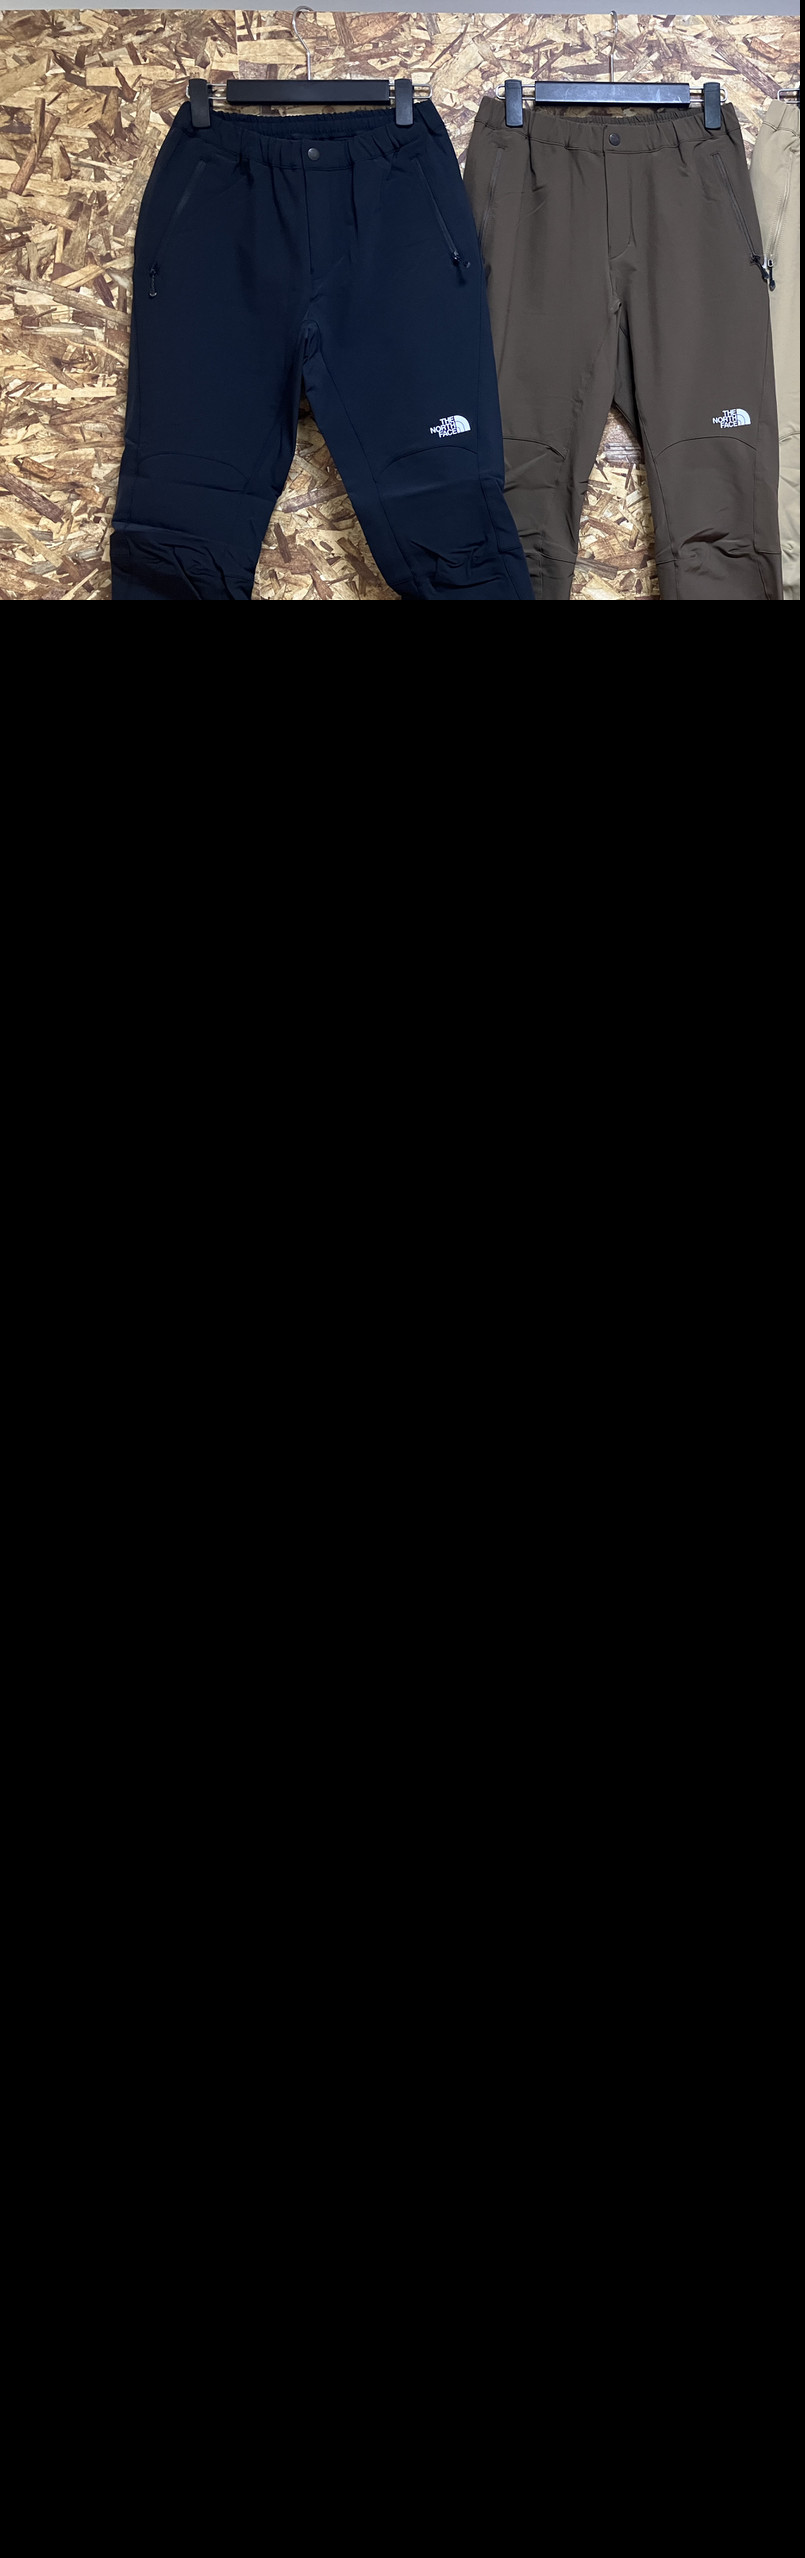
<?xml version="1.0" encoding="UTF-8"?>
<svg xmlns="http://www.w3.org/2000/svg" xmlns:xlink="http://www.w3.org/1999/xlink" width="805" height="2558">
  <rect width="100%" height="100%" fill="#000000" />
  <image x="0" y="0" width="800" height="600" xlink:href="image1.png" />
</svg>
